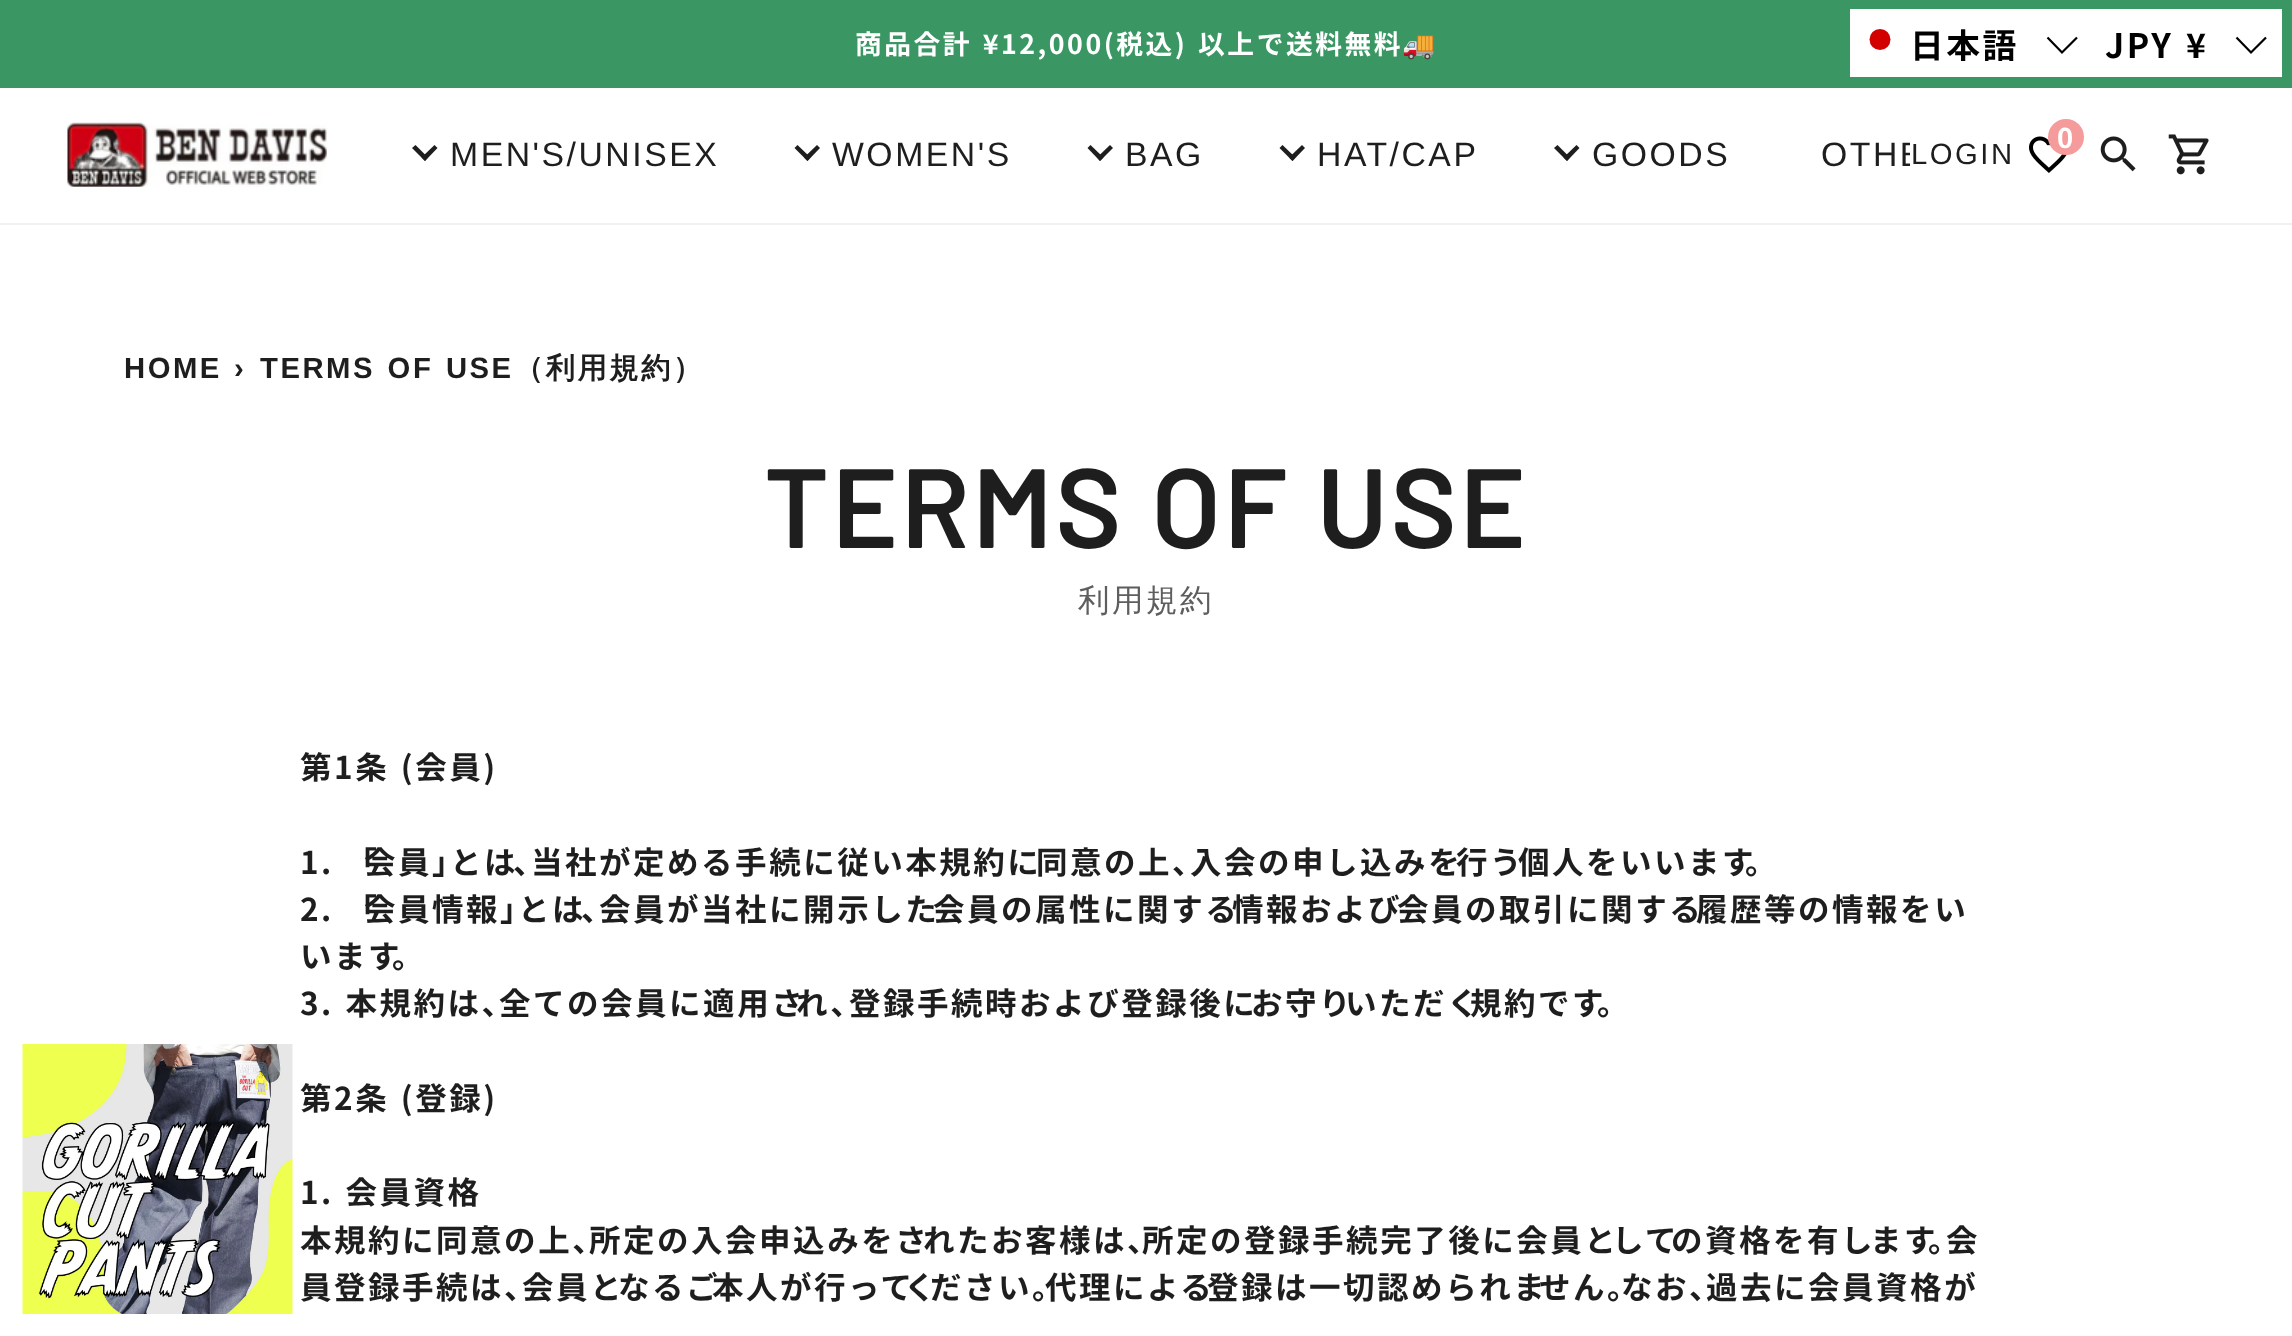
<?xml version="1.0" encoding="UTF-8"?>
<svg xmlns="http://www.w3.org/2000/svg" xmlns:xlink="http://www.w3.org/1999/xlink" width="2292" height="1336">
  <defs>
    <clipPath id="clip1"><rect x="383" y="88" width="1527" height="135" /></clipPath>
  </defs>
  <rect width="100%" height="100%" fill="#ffffff" />
  <rect width="2292" height="88" fill="#3a9662" />
  <rect y="223" width="2292" height="2" fill="#f1f1f1" />
  <image x="67" y="122" width="260" height="65" xlink:href="image1.png" />
  <path d="M 437.5 148 l -12.5 13 l -3.5 -3.5 l 13 -12.5 z" fill="#1e1e1e" />
  <path d="M 428 157.5 l -3 3.5 l -13 -13 l 3.5 -3 z" fill="#1e1e1e" />
  <path d="M 820 148 l -12.5 13 l -3.5 -3.5 l 13 -12.5 z" fill="#1e1e1e" />
  <path d="M 810.5 157.5 l -3 3.5 l -13 -13 l 3 -3 z" fill="#1e1e1e" />
  <path d="M 1113 148 l -13 13 l -3 -3.5 l 13 -12.5 z" fill="#1e1e1e" />
  <path d="M 1103.5 157.5 l -3.5 3.5 l -12.5 -13 l 3 -3 z" fill="#1e1e1e" />
  <path d="M 1305 148 l -12.5 13 l -3.5 -3.5 l 13 -12.5 z" fill="#1e1e1e" />
  <path d="M 1295.5 157.5 l -3 3.5 l -13 -13 l 3 -3 z" fill="#1e1e1e" />
  <path d="M 1579.5 148 l -12.5 13 l -3.5 -3.5 l 13 -12.5 z" fill="#1e1e1e" />
  <path d="M 1570 157.5 l -3 3.5 l -13 -13 l 3.5 -3 z" fill="#1e1e1e" />
  <image x="2029" y="136" width="38" height="37" xlink:href="image2.png" />
  <circle cx="2066" cy="137" r="18" fill="#f59b9b" />
  <image x="2100" y="136" width="36" height="36" xlink:href="image3.png" />
  <image x="2168" y="134" width="41" height="41" xlink:href="image4.png" />
  <rect x="1850" y="9" width="432" height="68" fill="#ffffff" />
  <circle cx="1880" cy="39.5" r="10.5" fill="#d30000" />
  <path d="M 2047.5 37.5 l 14.5 15 l 15 -15" fill="none" stroke="#000000" stroke-width="2.2" />
  <path d="M 2236.5 37.5 l 14.5 15 l 15 -15" fill="none" stroke="#000000" stroke-width="2.2" />
  <image x="22" y="1044" width="271" height="270" xlink:href="image5.png" />
  <text x="855" y="54" word-spacing="2" style="font-family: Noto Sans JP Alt; font-size: 26.75px; font-weight: bold; letter-spacing: 2.52px; fill: #ffffff">商品合計 ¥12,000(税込) 以上で送料無料</text>
  <text x="1402" y="54" style="font-family: Noto Color Emoji; font-size: 26.75px; font-weight: bold; letter-spacing: 2.52px; fill: #ffffff">🚚</text>
  <text x="450" y="166" style="font-family: Liberation Sans; font-size: 33.75px; letter-spacing: 2.52px; fill: #1e1e1e">MEN'S/UNISEX</text>
  <text x="832" y="166" style="font-family: Liberation Sans; font-size: 33.75px; letter-spacing: 2.52px; fill: #1e1e1e">WOMEN'S</text>
  <text x="1125" y="166" style="font-family: Liberation Sans; font-size: 33.75px; letter-spacing: 2.52px; fill: #1e1e1e">BAG</text>
  <text x="1317" y="166" style="font-family: Liberation Sans; font-size: 33.75px; letter-spacing: 2.52px; fill: #1e1e1e">HAT/CAP</text>
  <text x="1592" y="166" style="font-family: Liberation Sans; font-size: 33.75px; letter-spacing: 2.52px; fill: #1e1e1e">GOODS</text>
  <g clip-path="url(#clip1)">
    <text x="1821" y="166" style="font-family: Liberation Sans; font-size: 33.75px; letter-spacing: 2.52px; fill: #1e1e1e">OTHE</text>
  </g>
  <text x="1911" y="164" style="font-family: Liberation Sans; font-size: 29.25px; letter-spacing: 2.52px; fill: #1e1e1e">LOGIN</text>
  <text x="2057" y="148" style="font-family: Liberation Sans; font-size: 29.25px; font-weight: bold; letter-spacing: 2.52px; fill: #ffffff">0</text>
  <text x="1910" y="58" style="font-family: Noto Sans JP; font-size: 33.75px; font-weight: bold; letter-spacing: 2.52px; fill: #000000">日本語</text>
  <text x="2105" y="58" style="font-family: Noto Sans JP; font-size: 33.75px; font-weight: bold; letter-spacing: 2.52px; fill: #000000">JPY</text>
  <text x="2186" y="58" style="font-family: Noto Sans JP; font-size: 33.75px; font-weight: bold; letter-spacing: 2.52px; fill: #000000">¥</text>
  <text x="124" y="378" style="font-family: Liberation Sans; font-size: 29.25px; font-weight: bold; letter-spacing: 2.52px; fill: #1e1e1e">HOME</text>
  <text x="234" y="378" style="font-family: Liberation Sans; font-size: 29.25px; font-weight: bold; letter-spacing: 2.52px; fill: #1e1e1e">›</text>
  <text x="260" y="378" word-spacing="2" style="font-family: Liberation Sans; font-size: 29.25px; font-weight: bold; letter-spacing: 2.52px; fill: #1e1e1e">TERMS OF USE</text>
  <text x="514" y="378" style="font-family: WenQuanYi Zen Hei; font-size: 29.25px; font-weight: bold; letter-spacing: 2.52px; fill: #1e1e1e">（利用規約）</text>
  <text x="764" y="548" word-spacing="2" style="font-family: Barlow; font-size: 112.5px; font-weight: 600; letter-spacing: 2.52px; fill: #1e1e1e">TERMS OF USE</text>
  <text x="1078" y="611" style="font-family: WenQuanYi Zen Hei; font-size: 31.5px; font-weight: 500; letter-spacing: 2.52px; fill: #5e5e5e">利用規約</text>
  <text x="300" y="779" word-spacing="2" style="font-family: Noto Sans JP; font-size: 31.5px; font-weight: bold; letter-spacing: 2.52px; fill: #1e1e1e">第1条 (会員)</text>
  <text x="300" y="874" word-spacing="2" style="font-family: Noto Sans JP; font-size: 31.5px; font-weight: bold; letter-spacing: 2.52px; fill: #1e1e1e">1. 「</text>
  <text x="364" y="874" word-spacing="2" style="font-family: Noto Sans JP; font-size: 31.5px; font-weight: bold; letter-spacing: 2.52px; fill: #1e1e1e">会員」</text>
  <text x="450" y="874" word-spacing="2" style="font-family: Noto Sans JP; font-size: 31.5px; font-weight: bold; letter-spacing: 2.52px; fill: #1e1e1e">とは</text>
  <text x="513" y="874" word-spacing="2" style="font-family: Noto Sans JP; font-size: 31.5px; font-weight: bold; letter-spacing: 2.52px; fill: #1e1e1e">、</text>
  <text x="531" y="874" word-spacing="2" style="font-family: Noto Sans JP; font-size: 31.5px; font-weight: bold; letter-spacing: 2.52px; fill: #1e1e1e">当社が定める手続に従い本規約に</text>
  <text x="1036" y="874" word-spacing="2" style="font-family: Noto Sans JP; font-size: 31.5px; font-weight: bold; letter-spacing: 2.52px; fill: #1e1e1e">同意の上、</text>
  <text x="1190" y="874" word-spacing="2" style="font-family: Noto Sans JP; font-size: 31.5px; font-weight: bold; letter-spacing: 2.52px; fill: #1e1e1e">入会の申し込みを</text>
  <text x="1456" y="874" word-spacing="2" style="font-family: Noto Sans JP; font-size: 31.5px; font-weight: bold; letter-spacing: 2.52px; fill: #1e1e1e">行う</text>
  <text x="1518" y="874" word-spacing="2" style="font-family: Noto Sans JP; font-size: 31.5px; font-weight: bold; letter-spacing: 2.52px; fill: #1e1e1e">個人をいいます</text>
  <text x="1745" y="874" word-spacing="2" style="font-family: Noto Sans JP; font-size: 31.5px; font-weight: bold; letter-spacing: 2.52px; fill: #1e1e1e">。</text>
  <text x="300" y="921" word-spacing="2" style="font-family: Noto Sans JP; font-size: 31.5px; font-weight: bold; letter-spacing: 2.52px; fill: #1e1e1e">2. 「</text>
  <text x="364" y="921" word-spacing="2" style="font-family: Noto Sans JP; font-size: 31.5px; font-weight: bold; letter-spacing: 2.52px; fill: #1e1e1e">会員情報」</text>
  <text x="518" y="921" word-spacing="2" style="font-family: Noto Sans JP; font-size: 31.5px; font-weight: bold; letter-spacing: 2.52px; fill: #1e1e1e">とは</text>
  <text x="581" y="921" word-spacing="2" style="font-family: Noto Sans JP; font-size: 31.5px; font-weight: bold; letter-spacing: 2.52px; fill: #1e1e1e">、</text>
  <text x="599" y="921" word-spacing="2" style="font-family: Noto Sans JP; font-size: 31.5px; font-weight: bold; letter-spacing: 2.52px; fill: #1e1e1e">会員が当社に開示した</text>
  <text x="933" y="921" word-spacing="2" style="font-family: Noto Sans JP; font-size: 31.5px; font-weight: bold; letter-spacing: 2.52px; fill: #1e1e1e">会員の属性に関する</text>
  <text x="1232" y="921" word-spacing="2" style="font-family: Noto Sans JP; font-size: 31.5px; font-weight: bold; letter-spacing: 2.52px; fill: #1e1e1e">情報および</text>
  <text x="1397" y="921" word-spacing="2" style="font-family: Noto Sans JP; font-size: 31.5px; font-weight: bold; letter-spacing: 2.52px; fill: #1e1e1e">会員の取引に関する</text>
  <text x="1696" y="921" word-spacing="2" style="font-family: Noto Sans JP; font-size: 31.5px; font-weight: bold; letter-spacing: 2.52px; fill: #1e1e1e">履歴等の情報をい</text>
  <text x="300" y="968" style="font-family: Noto Sans JP; font-size: 31.5px; font-weight: bold; letter-spacing: 2.52px; fill: #1e1e1e">います</text>
  <text x="392" y="968" style="font-family: Noto Sans JP; font-size: 31.5px; font-weight: bold; letter-spacing: 2.52px; fill: #1e1e1e">。</text>
  <text x="300" y="1015" word-spacing="2" style="font-family: Noto Sans JP; font-size: 31.5px; font-weight: bold; letter-spacing: 2.52px; fill: #1e1e1e">3. 本規約は、</text>
  <text x="499" y="1015" word-spacing="2" style="font-family: Noto Sans JP; font-size: 31.5px; font-weight: bold; letter-spacing: 2.52px; fill: #1e1e1e">全ての会員に適用さ</text>
  <text x="796" y="1015" word-spacing="2" style="font-family: Noto Sans JP; font-size: 31.5px; font-weight: bold; letter-spacing: 2.52px; fill: #1e1e1e">れ、</text>
  <text x="849" y="1015" word-spacing="2" style="font-family: Noto Sans JP; font-size: 31.5px; font-weight: bold; letter-spacing: 2.52px; fill: #1e1e1e">登録手続時および登録後に</text>
  <text x="1251" y="1015" word-spacing="2" style="font-family: Noto Sans JP; font-size: 31.5px; font-weight: bold; letter-spacing: 2.52px; fill: #1e1e1e">お守り</text>
  <text x="1345" y="1015" word-spacing="2" style="font-family: Noto Sans JP; font-size: 31.5px; font-weight: bold; letter-spacing: 2.52px; fill: #1e1e1e">いただく</text>
  <text x="1470" y="1015" word-spacing="2" style="font-family: Noto Sans JP; font-size: 31.5px; font-weight: bold; letter-spacing: 2.52px; fill: #1e1e1e">規約です</text>
  <text x="1597" y="1015" word-spacing="2" style="font-family: Noto Sans JP; font-size: 31.5px; font-weight: bold; letter-spacing: 2.52px; fill: #1e1e1e">。</text>
  <text x="300" y="1110" word-spacing="2" style="font-family: Noto Sans JP; font-size: 31.5px; font-weight: bold; letter-spacing: 2.52px; fill: #1e1e1e">第2条 (登録)</text>
  <text x="300" y="1204" word-spacing="2" style="font-family: Noto Sans JP; font-size: 31.5px; font-weight: bold; letter-spacing: 2.52px; fill: #1e1e1e">1. 会員資格</text>
  <text x="300" y="1252" style="font-family: Noto Sans JP; font-size: 31.5px; font-weight: bold; letter-spacing: 2.52px; fill: #1e1e1e">本規約に同意の上、</text>
  <text x="589" y="1252" style="font-family: Noto Sans JP; font-size: 31.5px; font-weight: bold; letter-spacing: 2.52px; fill: #1e1e1e">所定の入会申込みをさ</text>
  <text x="923" y="1252" style="font-family: Noto Sans JP; font-size: 31.5px; font-weight: bold; letter-spacing: 2.52px; fill: #1e1e1e">れたお客様は、</text>
  <text x="1142" y="1252" style="font-family: Noto Sans JP; font-size: 31.5px; font-weight: bold; letter-spacing: 2.52px; fill: #1e1e1e">所定の登録手続完了後に会員と</text>
  <text x="1612" y="1252" style="font-family: Noto Sans JP; font-size: 31.5px; font-weight: bold; letter-spacing: 2.52px; fill: #1e1e1e">して</text>
  <text x="1671" y="1252" style="font-family: Noto Sans JP; font-size: 31.5px; font-weight: bold; letter-spacing: 2.52px; fill: #1e1e1e">の資格を有し</text>
  <text x="1870" y="1252" style="font-family: Noto Sans JP; font-size: 31.5px; font-weight: bold; letter-spacing: 2.52px; fill: #1e1e1e">ます</text>
  <text x="1928" y="1252" style="font-family: Noto Sans JP; font-size: 31.5px; font-weight: bold; letter-spacing: 2.52px; fill: #1e1e1e">。</text>
  <text x="1946" y="1252" style="font-family: Noto Sans JP; font-size: 31.5px; font-weight: bold; letter-spacing: 2.52px; fill: #1e1e1e">会</text>
  <text x="300" y="1299" style="font-family: Noto Sans JP; font-size: 31.5px; font-weight: bold; letter-spacing: 2.52px; fill: #1e1e1e">員登録手続は、</text>
  <text x="522" y="1299" style="font-family: Noto Sans JP; font-size: 31.5px; font-weight: bold; letter-spacing: 2.52px; fill: #1e1e1e">会員と</text>
  <text x="618" y="1299" style="font-family: Noto Sans JP; font-size: 31.5px; font-weight: bold; letter-spacing: 2.52px; fill: #1e1e1e">なるご</text>
  <text x="712" y="1299" style="font-family: Noto Sans JP; font-size: 31.5px; font-weight: bold; letter-spacing: 2.52px; fill: #1e1e1e">本人が行って</text>
  <text x="904" y="1299" style="font-family: Noto Sans JP; font-size: 31.5px; font-weight: bold; letter-spacing: 2.52px; fill: #1e1e1e">く</text>
  <text x="930" y="1299" style="font-family: Noto Sans JP; font-size: 31.5px; font-weight: bold; letter-spacing: 2.52px; fill: #1e1e1e">ださい。</text>
  <text x="1045" y="1299" style="font-family: Noto Sans JP; font-size: 31.5px; font-weight: bold; letter-spacing: 2.52px; fill: #1e1e1e">代理による</text>
  <text x="1207" y="1299" style="font-family: Noto Sans JP; font-size: 31.5px; font-weight: bold; letter-spacing: 2.52px; fill: #1e1e1e">登録は一切認められま</text>
  <text x="1539" y="1299" style="font-family: Noto Sans JP; font-size: 31.5px; font-weight: bold; letter-spacing: 2.52px; fill: #1e1e1e">せん。</text>
  <text x="1621" y="1299" style="font-family: Noto Sans JP; font-size: 31.5px; font-weight: bold; letter-spacing: 2.52px; fill: #1e1e1e">なお、</text>
  <text x="1706" y="1299" style="font-family: Noto Sans JP; font-size: 31.5px; font-weight: bold; letter-spacing: 2.52px; fill: #1e1e1e">過去に会員資格が</text>
</svg>
